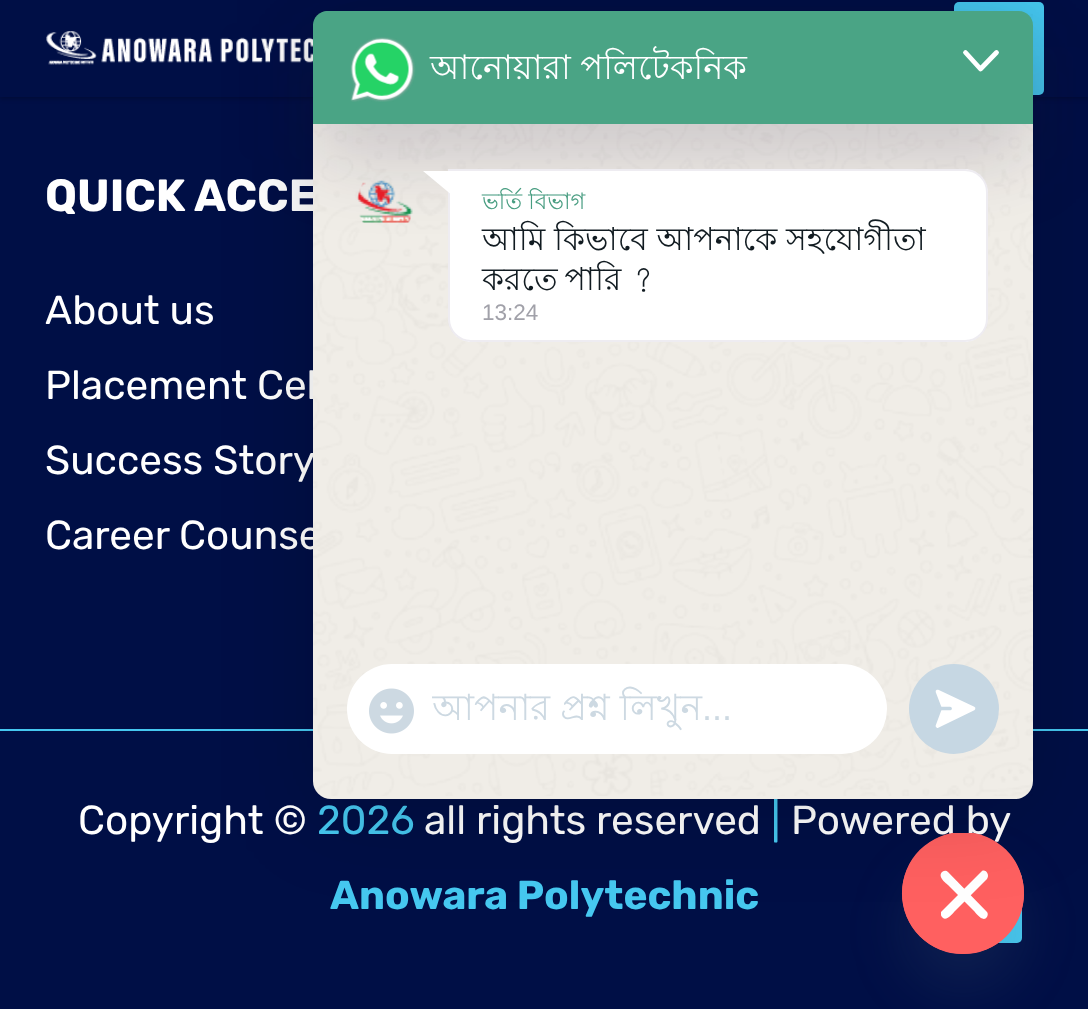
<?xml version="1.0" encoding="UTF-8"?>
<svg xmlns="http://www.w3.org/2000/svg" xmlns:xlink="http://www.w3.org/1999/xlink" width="1088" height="1009">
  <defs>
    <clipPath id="clip1"><rect x="902" y="833" width="122" height="121" /></clipPath>
    <clipPath id="clip2"><rect x="432" y="680" width="432" height="60" /></clipPath>
  </defs>
  <rect width="100%" height="100%" fill="#000f46" />
  <rect y="2" width="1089" height="97" fill="#000000" fill-opacity="0.2" filter="blur(2px)" />
  <rect width="1088" height="97" fill="#000f46" />
  <image x="46" y="31" width="267" height="34" xlink:href="image5.png" />
  <rect x="954" y="2" width="90" height="93" rx="5" fill="#46c8f0" />
  <rect y="729" width="1088" height="2" fill="#46c8f0" />
  <rect x="952" y="873" width="70" height="70" rx="5" fill="#46c8f0" />
  <rect x="902" y="869" width="122" height="121" rx="60.5" fill="#49687e" fill-opacity="0.16" filter="blur(27px)" />
  <text x="45" y="211" style="font-family: Rubik; font-size: 45px; font-weight: bold; fill: #ffffff">QUICK ACCE</text>
  <text x="45" y="324" style="font-family: Rubik; font-size: 40.5px; fill: #ffffff">About us</text>
  <text x="45" y="399" style="font-family: Rubik; font-size: 40.5px; fill: #ffffff">Placement Cel</text>
  <text x="45" y="474" style="font-family: Rubik; font-size: 40.5px; fill: #ffffff">Success Story</text>
  <text x="45" y="549" style="font-family: Rubik; font-size: 40.5px; fill: #ffffff">Career Counse</text>
  <text x="78" y="834" style="font-family: Rubik; font-size: 40.5px; fill: #ffffff">Copyright ©</text>
  <text x="317" y="834" style="font-family: Rubik; font-size: 40.5px; fill: #46c8f0">2026</text>
  <text x="424" y="834" style="font-family: Rubik; font-size: 40.5px; fill: #ffffff">all rights reserved</text>
  <text x="771" y="834" style="font-family: Rubik; font-size: 40.5px; fill: #46c8f0">|</text>
  <text x="791" y="834" style="font-family: Rubik; font-size: 40.5px; fill: #ffffff">Powered by</text>
  <text x="330" y="909" style="font-family: Rubik; font-size: 40.5px; font-weight: bold; fill: #46c8f0">Anowara Polytechnic</text>
  <rect x="902" y="833" width="122" height="121" rx="60.5" fill="#ff6060" />
  <g clip-path="url(#clip1)">
    <circle cx="963" cy="893" r="61" fill="#ff6060" />
  </g>
  <path d="M 948 872 l 39 40 c 1 1 1 3 0 5 c -4 6 -11 -4 -13 -6 l -26 -26 c -1 -1 -11 -8 -6 -13 c 2 -1 4 -2 6 0 z" fill="#ffffff" />
  <path d="M 987 879 l -32 32 c -2 2 -8 10 -12 7 c -1 -1 -2 -2 -2 -3 v -3 l 41 -41 c 4 -2 8 4 5 8 z" fill="#ffffff" />
  <rect x="313" y="23" width="720" height="787" rx="14" fill="#000000" fill-opacity="0.16" filter="blur(45px)" />
  <rect x="313" y="11" width="720" height="788" rx="18" fill="#f0ede7" />
  <image x="313" y="14" width="720" height="782" xlink:href="image1.png" />
  <rect x="313" y="47" width="720" height="113" rx="14" fill="#1a0e35" fill-opacity="0.16" filter="blur(36px)" />
  <path d="M 448 169 h 517 c 12.5 0 23 10.5 23 23 v 127 c 0 12.5 -10.5 23 -23 23 h -494 c -12.5 0 -23 -10.5 -23 -23 z" fill="#ffffff" />
  <path d="M 449 170 h 516 c 12 0 22 10 22 22 v 127 c 0 12 -10 22 -22 22 h -494 c -12 0 -22 -10 -22 -22 z" fill="none" stroke="#221147" stroke-opacity="0.08" stroke-width="2" />
  <path d="M 450 171 v 22.5 l -27 -22.5 z" fill="#ffffff" />
  <text x="482" y="320" style="font-family: Liberation Sans; font-size: 22.5px; fill: #a1a1a9">13:24</text>
  <text x="482" y="290" word-spacing="-2" style="font-family: Lohit Bengali; font-size: 31.5px; fill: #111b21">করতে পারি ?</text>
  <text x="482" y="250" style="font-family: Lohit Bengali; font-size: 31.5px; fill: #111b21">আমি কিভাবে আপনাকে সহযোগীতা</text>
  <text x="482" y="209" style="font-family: Lohit Bengali; font-size: 22.5px; fill: #489d81">ভর্তি বিভাগ</text>
  <image x="357" y="180" width="56" height="43" xlink:href="image3.png" />
  <rect x="347" y="664" width="540" height="90" rx="45" fill="#ffffff" />
  <image x="369" y="688" width="45" height="46" xlink:href="image4.png" />
  <circle cx="954" cy="709" r="45" fill="#c6d7e3" />
  <path d="M 973.5 708.5 l -36 17.5 l 6.5 -17.5 l -6.5 -17 z" fill="#ffffff" stroke="#ffffff" stroke-width="3.7" stroke-linecap="round" stroke-linejoin="round" />
  <path d="M 950 708.5 h -11.5" fill="none" stroke="#c6d7e3" stroke-width="3.7" stroke-linecap="round" stroke-linejoin="round" />
  <text x="702" y="720" style="font-family: Liberation Sans; font-size: 36px; fill: #cdd9e2">...</text>
  <g clip-path="url(#clip2)">
    <text x="432" y="720" style="font-family: Lohit Bengali; font-size: 36px; fill: #cdd9e2">আপনার প্রশ্ন লিখুন</text>
  </g>
  <path d="M 327 11 h 692 c 7.5 0 14 6.5 14 14 v 99 h -720 v -99 c 0 -7.5 6.5 -14 14 -14 z" fill="#4aa485" />
  <path d="M 965.5 52.5 l 15 16.5 l 16 -16.5" fill="none" stroke="#ffffff" stroke-width="4.8" stroke-linecap="round" stroke-linejoin="round" />
  <image x="350" y="37" width="66" height="65" xlink:href="image2.png" />
  <text x="430" y="79" style="font-family: Lohit Bengali; font-size: 33.75px; fill: #ffffff">আনোয়ারা পলিটেকনিক</text>
</svg>
